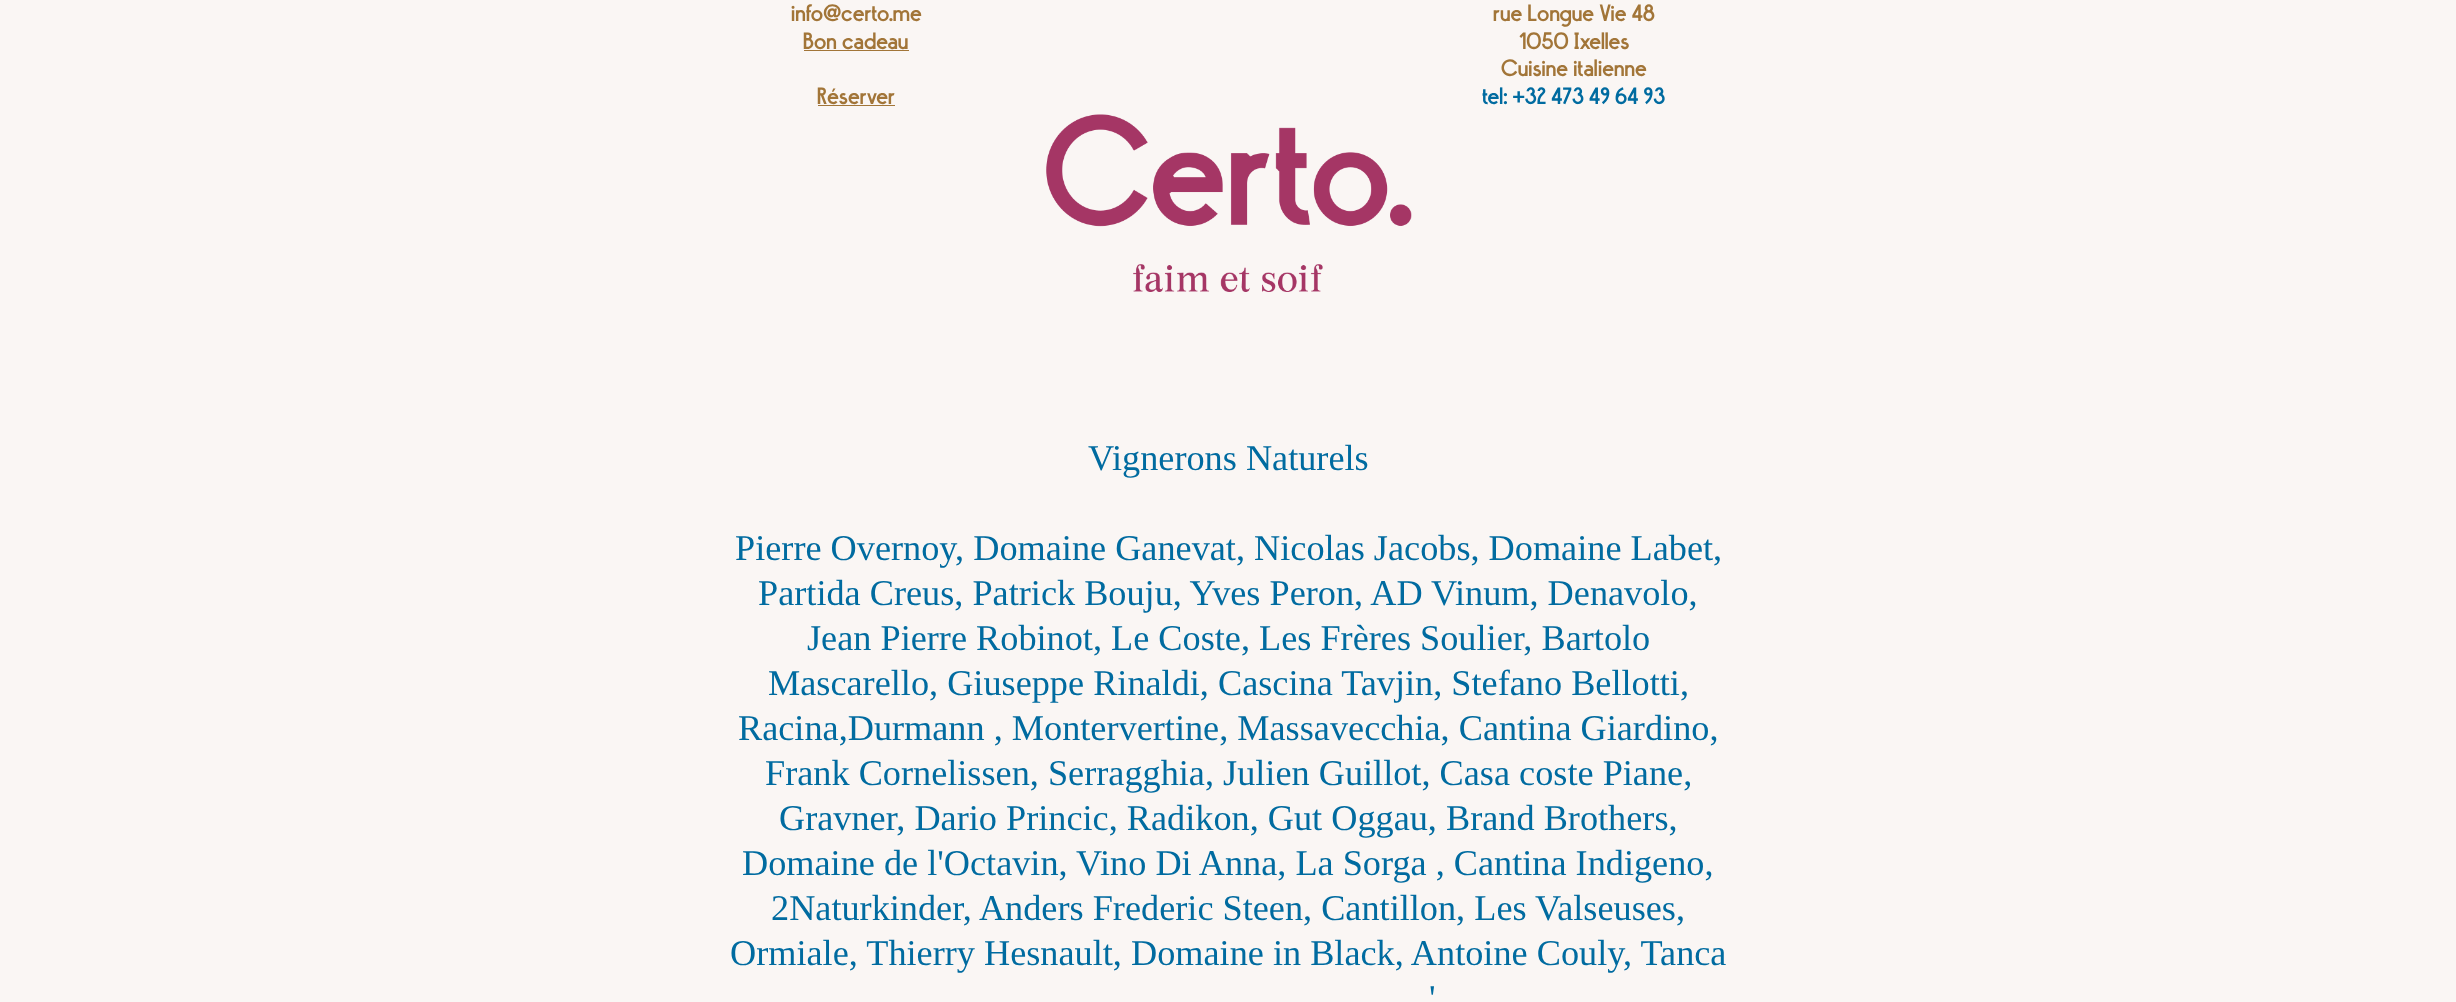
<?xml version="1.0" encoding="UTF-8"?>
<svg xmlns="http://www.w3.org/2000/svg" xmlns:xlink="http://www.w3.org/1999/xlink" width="2456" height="1002">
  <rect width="100%" height="100%" fill="#faf6f4" />
  <rect x="804" y="50" width="105" height="1" fill="#a27538" />
  <rect x="818" y="105" width="77" height="1" fill="#a27538" />
  <image x="1046" y="114" width="366" height="178" xlink:href="image1.png" />
  <text x="791" y="21" style="font-family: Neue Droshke; font-size: 23.75px; font-weight: 600; fill: #a27538">info@certo.me</text>
  <text x="803" y="49" style="font-family: Neue Droshke; font-size: 23.75px; font-weight: 600; fill: #a27538">Bon cadeau</text>
  <text x="817" y="104" style="font-family: Neue Droshke; font-size: 23.75px; font-weight: 600; fill: #a27538">Réserver</text>
  <text x="1493" y="21" style="font-family: Neue Droshke; font-size: 23.75px; font-weight: 600; fill: #a27538">rue Longue Vie 48</text>
  <text x="1519" y="49" style="font-family: Neue Droshke; font-size: 23.75px; font-weight: 600; fill: #a27538">1050 Ixelles</text>
  <text x="1501" y="76" style="font-family: Neue Droshke; font-size: 23.75px; font-weight: 600; fill: #a27538">Cuisine italienne</text>
  <text x="1482" y="104" style="font-family: Neue Droshke; font-size: 23.75px; font-weight: 600; fill: #006ba0">tel: +32 473 49 64 93</text>
  <text x="1088" y="470" style="font-family: Liberation Serif; font-size: 36.25px; fill: #006ba0">Vignerons Naturels</text>
  <text x="735" y="560" style="font-family: Liberation Serif; font-size: 36.25px; fill: #006ba0">Pierre Overnoy, Domaine Ganevat, Nicolas Jacobs, Domaine Labet,</text>
  <text x="758" y="605" style="font-family: Liberation Serif; font-size: 36.25px; fill: #006ba0">Partida Creus, Patrick Bouju, Yves Peron, AD Vinum, Denavolo,</text>
  <text x="807" y="650" style="font-family: Liberation Serif; font-size: 36.25px; fill: #006ba0">Jean Pierre Robinot, Le Coste, Les Frères Soulier, Bartolo</text>
  <text x="768" y="695" style="font-family: Liberation Serif; font-size: 36.25px; fill: #006ba0">Mascarello, Giuseppe Rinaldi, Cascina Tavjin, Stefano Bellotti,</text>
  <text x="738" y="740" style="font-family: Liberation Serif; font-size: 36.25px; fill: #006ba0">Racina,Durmann , Montervertine, Massavecchia, Cantina Giardino,</text>
  <text x="765" y="785" style="font-family: Liberation Serif; font-size: 36.25px; fill: #006ba0">Frank Cornelissen, Serragghia, Julien Guillot, Casa coste Piane,</text>
  <text x="779" y="830" style="font-family: Liberation Serif; font-size: 36.25px; fill: #006ba0">Gravner, Dario Princic, Radikon, Gut Oggau, Brand Brothers,</text>
  <text x="742" y="875" style="font-family: Liberation Serif; font-size: 36.25px; fill: #006ba0">Domaine de l'Octavin, Vino Di Anna, La Sorga , Cantina Indigeno,</text>
  <text x="771" y="920" style="font-family: Liberation Serif; font-size: 36.25px; fill: #006ba0">2Naturkinder, Anders Frederic Steen, Cantillon, Les Valseuses,</text>
  <text x="730" y="965" style="font-family: Liberation Serif; font-size: 36.25px; fill: #006ba0">Ormiale, Thierry Hesnault, Domaine in Black, Antoine Couly, Tanca</text>
  <text x="1429" y="1010" style="font-family: Liberation Serif; font-size: 36.25px; fill: #006ba0">'</text>
</svg>
